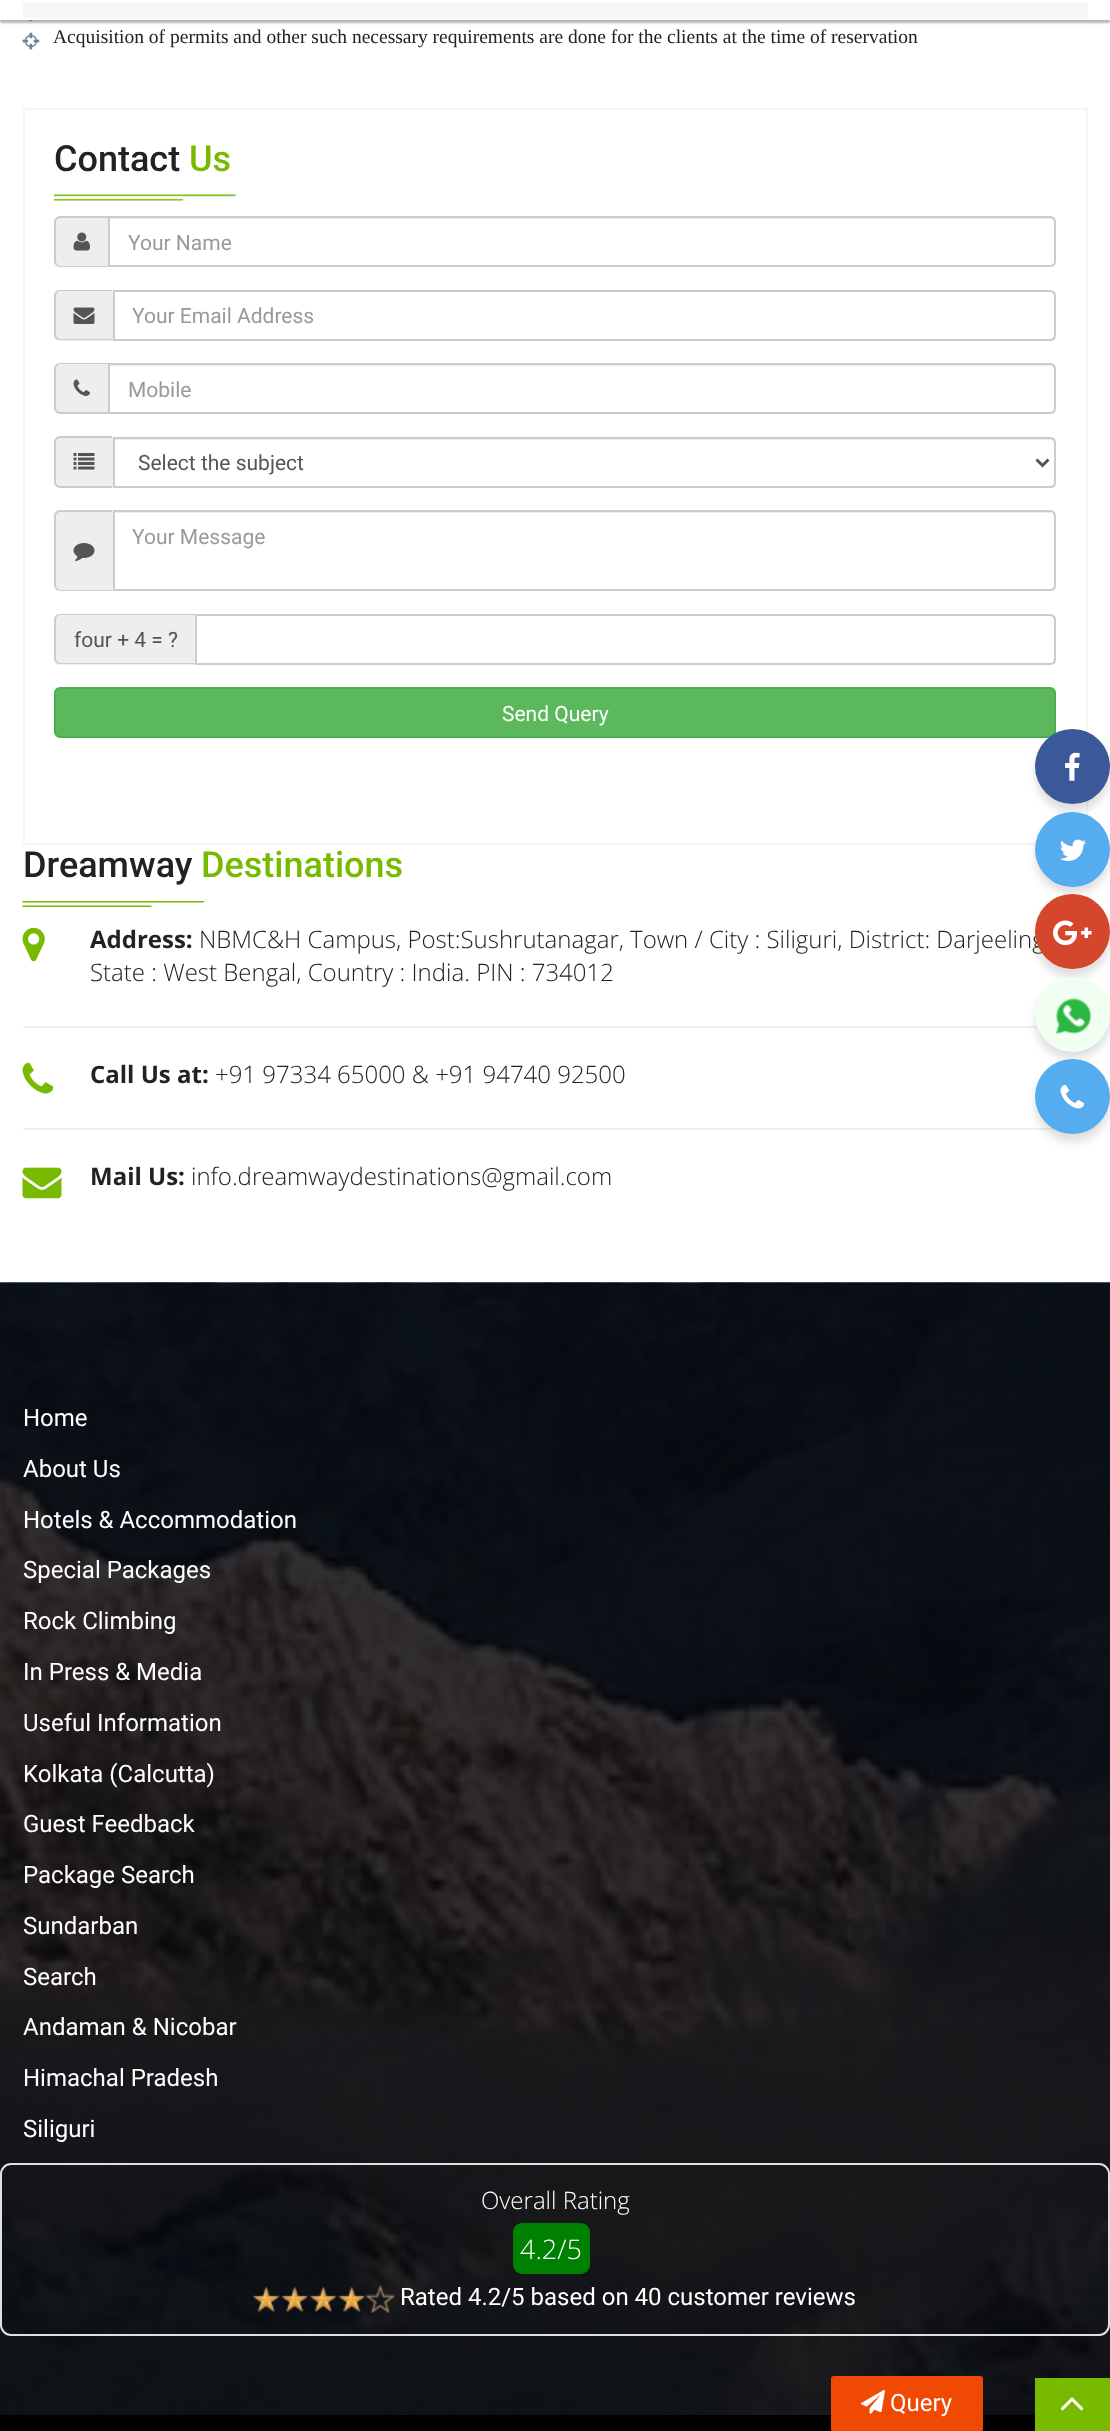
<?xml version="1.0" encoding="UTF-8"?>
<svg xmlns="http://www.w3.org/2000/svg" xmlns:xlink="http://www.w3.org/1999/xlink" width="1110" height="2431">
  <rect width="100%" height="100%" fill="#ffffff" />
  <image x="29" y="20" width="4" height="1" xlink:href="image1.png" />
  <rect y="3" width="1110" height="20" fill="#000000" fill-opacity="0.29" filter="blur(1px)" />
  <rect y="1" width="1110" height="19" fill="#ffffff" />
  <rect x="23" y="3" width="1065" height="15" fill="#f7f7f7" />
  <image x="22" y="32" width="18" height="18" xlink:href="image2.png" />
  <rect x="24" y="109" width="1063" height="735" fill="none" stroke="#f5f5f5" stroke-width="2" />
  <image x="54" y="194" width="182" height="7" xlink:href="image3.png" />
  <path d="M 60 216 h 48 v 51 h -48 c -3.5 0 -6 -2.5 -6 -6 v -39 c 0 -3.5 2.5 -6 6 -6 z" fill="#eeeeee" />
  <path d="M 60 216 h 48 v 51 h -48 c -3 0 -6 -3 -6 -6 v -39 c 0 -3 3 -6 6 -6 z m 0 2 h 48 v 48 h -48 c -2 0 -4 -3 -4 -5 v -39 c 0 -2 2 -4 4 -4 z" fill="#cccccc" fill-rule="evenodd" />
  <image x="73" y="232" width="17" height="19" xlink:href="image4.png" />
  <path d="M 110 219 h 940 c 2 0 4 2 4 5 v 38 l -1 3 c 1 -1 2 -3 2 -4 v -38 c 0 -3 -2 -5 -5 -5 h -940 z" fill="#ececec" />
  <path d="M 109 217 h 941 c 3 0 5 2 5 5 v 39 c 0 3 -2 5 -5 5 h -941 z" fill="none" stroke="#cccccc" stroke-width="2" />
  <path d="M 60 290 h 53 v 51 h -53 c -3.5 0 -6 -2.5 -6 -6 v -39 c 0 -3.5 2.5 -6 6 -6 z" fill="#eeeeee" />
  <path d="M 60 290 h 52 v 50 h -52 c -3 0 -6 -2 -6 -6 v -38 c 0 -4 3 -6 6 -6 z m 0 1 h 52 v 48 h -52 c -2 0 -4 -2 -4 -5 v -38 c 0 -3 2 -5 4 -5 z" fill="#cccccc" fill-rule="evenodd" />
  <image x="73" y="307" width="22" height="17" xlink:href="image5.png" />
  <path d="M 114 292 h 936 c 2 0 4 3 4 5 v 40 c 1 -1 1 -2 1 -3 v -38 c 0 -3 -2 -5 -5 -5 h -936 z" fill="#ececec" />
  <path d="M 114 291 h 936 c 3 0 5 2 5 5 v 39 c 0 3 -2 5 -5 5 h -936 z" fill="none" stroke="#cccccc" stroke-width="2" />
  <path d="M 60 363 h 48 v 51 h -48 c -3.5 0 -6 -2.5 -6 -6 v -39 c 0 -3.5 2.5 -6 6 -6 z" fill="#eeeeee" />
  <path d="M 60 363 h 48 v 51 h -48 c -3 0 -6 -3 -6 -6 v -39 c 0 -3 3 -6 6 -6 z m 0 1 h 48 v 48 h -48 c -2 0 -4 -2 -4 -4 v -39 c 0 -2 2 -5 4 -5 z" fill="#cccccc" fill-rule="evenodd" />
  <image x="73" y="379" width="17" height="17" xlink:href="image6.png" />
  <path d="M 110 366 h 940 c 2 0 4 2 4 4 v 41 c 1 -1 1 -2 1 -3 v -38 c 0 -3 -2 -5 -5 -5 h -940 z" fill="#ececec" />
  <path d="M 109 364 h 941 c 3 0 5 2 5 5 v 39 c 0 3 -2 5 -5 5 h -941 z" fill="none" stroke="#cccccc" stroke-width="2" />
  <path d="M 60 437 h 53 v 51 h -53 c -3.5 0 -6 -2.5 -6 -6 v -39 c 0 -3.5 2.5 -6 6 -6 z" fill="#eeeeee" />
  <path d="M 60 436 h 52 v 52 h -52 c -3 0 -6 -3 -6 -6 v -40 c 0 -3 3 -6 6 -6 z m 0 2 h 52 v 48 h -52 c -2 0 -4 -2 -4 -4 v -40 c 0 -2 2 -4 4 -4 z" fill="#cccccc" fill-rule="evenodd" />
  <image x="73" y="453" width="22" height="17" xlink:href="image7.png" />
  <path d="M 114 440 h 936 c 2 0 4 2 4 4 v 40 c 1 -1 1 -2 1 -3 v -38 c 0 -3 -2 -5 -5 -5 h -936 z" fill="#ececec" />
  <path d="M 114 438 h 936 c 3 0 5 2 5 5 v 39 c 0 3 -2 5 -5 5 h -936 z" fill="none" stroke="#cccccc" stroke-width="2" />
  <path d="M 1036.5 459.5 l 6 6 l 6 -6" fill="none" stroke="#555555" stroke-width="3" />
  <path d="M 60 510 h 53 v 81 h -53 c -3.5 0 -6 -2.5 -6 -6 v -69 c 0 -3.5 2.5 -6 6 -6 z" fill="#eeeeee" />
  <path d="M 60 510 h 52 v 81 h -52 c -3 0 -6 -3 -6 -6 v -69 c 0 -3 3 -6 6 -6 z m 0 2 h 52 v 78 h -52 c -2 0 -4 -3 -4 -5 v -69 c 0 -2 2 -4 4 -4 z" fill="#cccccc" fill-rule="evenodd" />
  <image x="73" y="543" width="22" height="18" xlink:href="image8.png" />
  <path d="M 114 513 h 936 c 2 0 4 2 4 5 v 68 l -1 3 c 1 -1 2 -3 2 -4 v -68 c 0 -3 -2 -5 -5 -5 h -936 z" fill="#ececec" />
  <path d="M 114 511 h 936 c 3 0 5 2 5 5 v 69 c 0 3 -2 5 -5 5 h -936 z" fill="none" stroke="#cccccc" stroke-width="2" />
  <path d="M 60 614 h 135 v 51 h -135 c -3.5 0 -6 -2.5 -6 -6 v -39 c 0 -3.5 2.5 -6 6 -6 z" fill="#eeeeee" />
  <path d="M 60 614 h 135 v 50 h -135 c -3 0 -6 -2 -6 -6 v -38 c 0 -4 3 -6 6 -6 z m 0 1 h 135 v 48 h -135 c -2 0 -4 -2 -4 -5 v -38 c 0 -3 2 -5 4 -5 z" fill="#cccccc" fill-rule="evenodd" />
  <path d="M 197 615 v 1 h 853 c 2 0 4 3 4 5 v 40 c 1 -1 1 -2 1 -3 v -38 c 0 -3 -2 -5 -5 -5 z" fill="#ececec" />
  <path d="M 196 615 h 854 c 3 0 5 2 5 5 v 39 c 0 3 -2 5 -5 5 h -854 z" fill="none" stroke="#cccccc" stroke-width="2" />
  <rect x="55" y="688" width="1000" height="49" rx="5" fill="#5cb85c" stroke="#4cae4c" stroke-width="2" />
  <image x="22" y="901" width="182" height="6" xlink:href="image9.png" />
  <image x="22" y="927" width="23" height="35" xlink:href="image10.png" />
  <rect x="23" y="1026" width="1015" height="2" fill="#f1f1f1" />
  <image x="22" y="1062" width="32" height="32" xlink:href="image11.png" />
  <rect x="23" y="1128" width="1033" height="2" fill="#f1f1f1" />
  <image x="22" y="1167" width="40" height="32" xlink:href="image12.png" />
  <rect x="1035" y="737" width="75" height="75" rx="37.5" fill="#000000" fill-opacity="0.13" filter="blur(4px)" />
  <circle cx="1072.5" cy="766.5" r="37.5" fill="#3b5998" />
  <image x="1065" y="752" width="15" height="29" xlink:href="image13.png" />
  <rect x="1035" y="819" width="75" height="75" rx="37.5" fill="#000000" fill-opacity="0.13" filter="blur(4px)" />
  <circle cx="1072.5" cy="849.5" r="37.5" fill="#55acee" />
  <image x="1060" y="839" width="26" height="22" xlink:href="image14.png" />
  <rect x="1035" y="902" width="75" height="75" rx="37.5" fill="#000000" fill-opacity="0.13" filter="blur(4px)" />
  <rect x="1035" y="984" width="75" height="75" rx="37.5" fill="#000000" fill-opacity="0.13" filter="blur(4px)" />
  <circle cx="1072.5" cy="1014.5" r="37.5" fill="#f0fff2" />
  <image x="1055" y="998" width="36" height="36" xlink:href="image16.png" />
  <rect x="1035" y="1067" width="75" height="75" rx="37.5" fill="#000000" fill-opacity="0.13" filter="blur(4px)" />
  <circle cx="1072.5" cy="1096.5" r="37.5" fill="#55acee" />
  <image x="1060" y="1084" width="25" height="25" xlink:href="image17.png" />
  <image x="0" y="1282" width="1110" height="1133" xlink:href="image18.png" />
  <rect x="1" y="2164" width="1108" height="171" rx="10" fill="none" stroke="#e0e0e0" stroke-width="2" />
  <rect x="513" y="2223" width="77" height="51" rx="9" fill="#008000" />
  <image x="253" y="2285" width="142" height="28" xlink:href="image19.png" />
  <rect y="2415" width="1035" height="16" fill="#000000" />
  <rect x="831" y="2376" width="152" height="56" rx="3" fill="#f04903" />
  <image x="861" y="2390" width="24" height="24" xlink:href="image20.png" />
  <rect x="1035" y="2378" width="75" height="53" fill="#77ba00" />
  <image x="1060" y="2397" width="24" height="14" xlink:href="image21.png" />
  <text x="53" y="43" style="font-family: Liberation Serif; font-size: 19.5px; fill: #222222">Acquisition of permits and other such necessary requirements are done for the clients at the time of reservation</text>
  <text x="54" y="171" style="font-family: Roboto; font-size: 36px; font-weight: 500; fill: #222222">Contact</text>
  <text x="189" y="171" style="font-family: Roboto; font-size: 36px; font-weight: 500; fill: #77ba00">Us</text>
  <text x="128" y="250" style="font-family: Roboto; font-size: 21px; fill: #999999">Your Name</text>
  <text x="132" y="323" style="font-family: Roboto; font-size: 21px; fill: #999999">Your Email Address</text>
  <text x="128" y="397" style="font-family: Roboto; font-size: 21px; fill: #999999">Mobile</text>
  <text x="138" y="470" style="font-family: Roboto; font-size: 21px; fill: #555555">Select the subject</text>
  <text x="132" y="544" style="font-family: Roboto; font-size: 21px; fill: #999999">Your Message</text>
  <text x="74" y="647" style="font-family: Roboto; font-size: 21px; fill: #555555">four + 4 = ?</text>
  <text x="502" y="721" style="font-family: Roboto; font-size: 21px; fill: #ffffff">Send Query</text>
  <text x="23" y="877" style="font-family: Roboto; font-size: 36px; font-weight: 500; fill: #222222">Dreamway</text>
  <text x="201" y="877" style="font-family: Roboto; font-size: 36px; font-weight: 500; fill: #77ba00">Destinations</text>
  <text x="90" y="948" style="font-family: Open Sans; font-size: 24px; font-weight: bold; fill: #222222">Address:</text>
  <text x="199" y="948" style="font-family: Open Sans; font-size: 24px; font-weight: 300; fill: #222222">NBMC&amp;H Campus, Post:Sushrutanagar, Town / City : Siliguri, District: Darjeeling</text>
  <text x="90" y="981" style="font-family: Open Sans; font-size: 24px; font-weight: 300; fill: #222222">State : West Bengal, Country : India. PIN : 734012</text>
  <text x="90" y="1083" style="font-family: Open Sans; font-size: 24px; font-weight: bold; fill: #222222">Call Us at:</text>
  <text x="215" y="1083" style="font-family: Open Sans; font-size: 24px; font-weight: 300; fill: #222222">+91 97334 65000 &amp; +91 94740 92500</text>
  <text x="90" y="1185" style="font-family: Open Sans; font-size: 24px; font-weight: bold; fill: #222222">Mail Us:</text>
  <text x="191" y="1185" style="font-family: Open Sans; font-size: 24px; font-weight: 300; fill: #222222">info.dreamwaydestinations@gmail.com</text>
  <circle cx="1072.5" cy="931.5" r="37.5" fill="#d5472c" />
  <image x="1053" y="920" width="39" height="26" xlink:href="image15.png" />
  <text x="23" y="1426" style="font-family: Roboto; font-size: 24px; fill: #ffffff">Home</text>
  <text x="23" y="1477" style="font-family: Roboto; font-size: 24px; fill: #ffffff">About Us</text>
  <text x="23" y="1528" style="font-family: Roboto; font-size: 24px; fill: #ffffff">Hotels &amp; Accommodation</text>
  <text x="23" y="1578" style="font-family: Roboto; font-size: 24px; fill: #ffffff">Special Packages</text>
  <text x="23" y="1629" style="font-family: Roboto; font-size: 24px; fill: #ffffff">Rock Climbing</text>
  <text x="23" y="1680" style="font-family: Roboto; font-size: 24px; fill: #ffffff">In Press &amp; Media</text>
  <text x="23" y="1731" style="font-family: Roboto; font-size: 24px; fill: #ffffff">Useful Information</text>
  <text x="23" y="1782" style="font-family: Roboto; font-size: 24px; fill: #ffffff">Kolkata (Calcutta)</text>
  <text x="23" y="1832" style="font-family: Roboto; font-size: 24px; fill: #ffffff">Guest Feedback</text>
  <text x="23" y="1883" style="font-family: Roboto; font-size: 24px; fill: #ffffff">Package Search</text>
  <text x="23" y="1934" style="font-family: Roboto; font-size: 24px; fill: #ffffff">Sundarban</text>
  <text x="23" y="1985" style="font-family: Roboto; font-size: 24px; fill: #ffffff">Search</text>
  <text x="23" y="2035" style="font-family: Roboto; font-size: 24px; fill: #ffffff">Andaman &amp; Nicobar</text>
  <text x="23" y="2086" style="font-family: Roboto; font-size: 24px; fill: #ffffff">Himachal Pradesh</text>
  <text x="23" y="2137" style="font-family: Roboto; font-size: 24px; fill: #ffffff">Siliguri</text>
  <text x="481" y="2209" style="font-family: Open Sans; font-size: 24px; font-weight: 300; fill: #ffffff">Overall Rating</text>
  <text x="520" y="2259" style="font-family: Open Sans; font-size: 27px; font-weight: 300; fill: #ffffff">4.2/5</text>
  <text x="400" y="2305" style="font-family: Roboto; font-size: 24px; fill: #ffffff">Rated 4.2/5 based on 40 customer reviews</text>
  <text x="890" y="2411" style="font-family: Roboto; font-size: 24px; fill: #ffffff">Query</text>
</svg>
